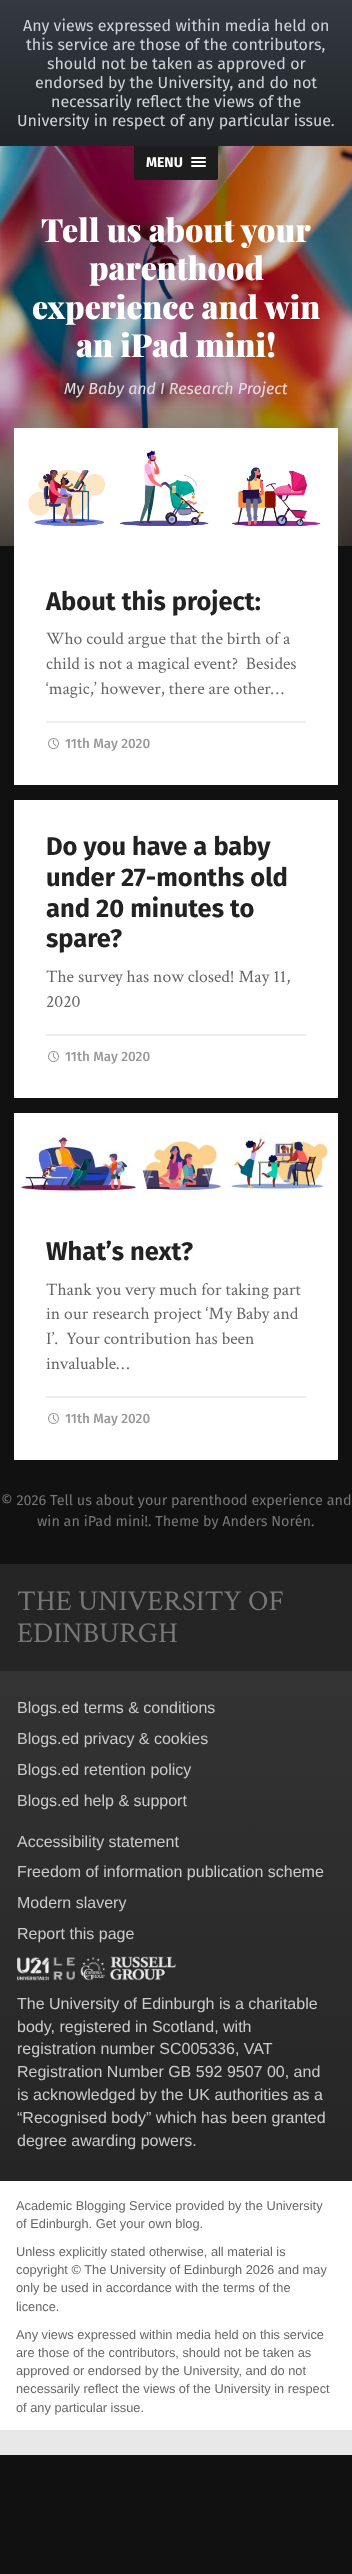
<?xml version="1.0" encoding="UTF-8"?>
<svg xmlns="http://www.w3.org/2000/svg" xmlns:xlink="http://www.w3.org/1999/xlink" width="352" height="2574">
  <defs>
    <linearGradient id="g1" gradientUnits="userSpaceOnUse" x1="176" y1="0" x2="176" y2="146"><stop offset="0" stop-color="#343a40" /><stop offset="1" stop-color="#212529" /></linearGradient>
    <linearGradient id="g2" gradientUnits="userSpaceOnUse" x1="176" y1="403" x2="176" y2="628"><stop offset="0" stop-color="#111111" stop-opacity="0" /><stop offset="1" stop-color="#111111" /></linearGradient>
    <linearGradient id="g3" gradientUnits="userSpaceOnUse" x1="176" y1="1671" x2="176" y2="2181"><stop offset="0" stop-color="#333333" /><stop offset="1" stop-color="#252525" /></linearGradient>
  </defs>
  <rect width="100%" height="100%" fill="#111111" />
  <rect width="352" height="146" fill="url(#g1)" />
  <image x="0" y="146" width="352" height="400" xlink:href="image1.png" />
  <path d="M 134 146 h 84 v 32 c 0 1 -1 2 -2 2 h -80 c -1 0 -2 -1 -2 -2 z" fill="#1d1d1d" />
  <rect x="191" y="157" width="15" height="2" rx="1" fill="#ffffff" />
  <rect x="191" y="161" width="15" height="2" rx="1" fill="#ffffff" />
  <rect x="191" y="165" width="15" height="2" rx="1" fill="#ffffff" />
  <rect y="408" width="352" height="138" fill="url(#g2)" />
  <rect x="14" y="428" width="324" height="357" fill="#ffffff" />
  <image x="28" y="450" width="293" height="77" xlink:href="image2.png" />
  <rect x="46" y="721" width="260" height="2" fill="#eeeeee" />
  <image x="48" y="738" width="11" height="11" xlink:href="image3.png" />
  <rect x="14" y="800" width="324" height="298" fill="#ffffff" />
  <rect x="46" y="1034" width="260" height="2" fill="#eeeeee" />
  <image x="48" y="1051" width="11" height="11" xlink:href="image3.png" />
  <rect x="14" y="1113" width="324" height="347" fill="#ffffff" />
  <image x="20" y="1132" width="312" height="64" xlink:href="image4.png" />
  <rect x="46" y="1396" width="260" height="2" fill="#eeeeee" />
  <image x="48" y="1413" width="11" height="11" xlink:href="image3.png" />
  <rect y="1564" width="352" height="107" fill="#252525" />
  <rect y="1671" width="352" height="510" fill="url(#g3)" />
  <image x="17" y="1956" width="159" height="25" xlink:href="image5.png" />
  <rect y="2430" width="352" height="25" fill="#e8e8e8" />
  <rect y="2181" width="352" height="249" fill="#ffffff" />
  <text x="23" y="31" style="font-family: Fira Sans; font-size: 16px; fill: #ced4da">Any views expressed within media held on</text>
  <text x="26" y="50" style="font-family: Fira Sans; font-size: 16px; fill: #ced4da">this service are those of the contributors,</text>
  <text x="47" y="69" style="font-family: Fira Sans; font-size: 16px; fill: #ced4da">should not be taken as approved or</text>
  <text x="35" y="88" style="font-family: Fira Sans; font-size: 16px; fill: #ced4da">endorsed by the University, and do not</text>
  <text x="51" y="107" style="font-family: Fira Sans; font-size: 16px; fill: #ced4da">necessarily reflect the views of the</text>
  <text x="17" y="126" style="font-family: Fira Sans; font-size: 16px; fill: #ced4da">University in respect of any particular issue.</text>
  <text x="146" y="167" style="font-family: Fira Sans; font-size: 14px; font-weight: bold; fill: #ffffff">MENU</text>
  <text x="41" y="242" style="font-family: Playfair Display; font-size: 32px; font-weight: 900; fill: #ffffff">Tell us about your</text>
  <text x="89" y="280" style="font-family: Playfair Display; font-size: 32px; font-weight: 900; fill: #ffffff">parenthood</text>
  <text x="32" y="319" style="font-family: Playfair Display; font-size: 32px; font-weight: 900; fill: #ffffff">experience and win</text>
  <text x="76" y="357" style="font-family: Playfair Display; font-size: 32px; font-weight: 900; fill: #ffffff">an iPad mini!</text>
  <text x="64" y="394" style="font-family: Fira Sans; font-size: 16px; font-style: italic; fill: #e7dddf">My Baby and I Research Project</text>
  <text x="46" y="610" style="font-family: Fira Sans; font-size: 25.5px; font-weight: bold; fill: #222222">About this project:</text>
  <text x="46" y="644" style="font-family: Crimson Text; font-size: 17.6px; fill: #666666">Who could argue that the birth of a</text>
  <text x="46" y="669" style="font-family: Crimson Text; font-size: 17.6px; fill: #666666" xml:space="preserve">child is not a magical event?  Besides</text>
  <text x="46" y="694" style="font-family: Crimson Text; font-size: 17.6px; fill: #666666">‘magic,’ however, there are other…</text>
  <text x="65" y="748" style="font-family: Fira Sans; font-size: 13.5px; font-weight: 500; fill: #999999">11th May 2020</text>
  <text x="46" y="855" style="font-family: Fira Sans; font-size: 25.5px; font-weight: bold; fill: #222222">Do you have a baby</text>
  <text x="46" y="886" style="font-family: Fira Sans; font-size: 25.5px; font-weight: bold; fill: #222222">under 27-months old</text>
  <text x="46" y="917" style="font-family: Fira Sans; font-size: 25.5px; font-weight: bold; fill: #222222">and 20 minutes to</text>
  <text x="46" y="947" style="font-family: Fira Sans; font-size: 25.5px; font-weight: bold; fill: #222222">spare?</text>
  <text x="46" y="982" style="font-family: Crimson Text; font-size: 17.6px; fill: #666666">The survey has now closed! May 11,</text>
  <text x="46" y="1007" style="font-family: Crimson Text; font-size: 17.6px; fill: #666666">2020</text>
  <text x="65" y="1061" style="font-family: Fira Sans; font-size: 13.5px; font-weight: 500; fill: #999999">11th May 2020</text>
  <text x="46" y="1260" style="font-family: Fira Sans; font-size: 25.5px; font-weight: bold; fill: #222222">What’s next?</text>
  <text x="46" y="1295" style="font-family: Crimson Text; font-size: 17.6px; fill: #666666">Thank you very much for taking part</text>
  <text x="46" y="1319" style="font-family: Crimson Text; font-size: 17.6px; fill: #666666">in our research project ‘My Baby and</text>
  <text x="46" y="1344" style="font-family: Crimson Text; font-size: 17.6px; fill: #666666" xml:space="preserve">I’.  Your contribution has been</text>
  <text x="46" y="1369" style="font-family: Crimson Text; font-size: 17.6px; fill: #666666">invaluable…</text>
  <text x="65" y="1423" style="font-family: Fira Sans; font-size: 13.5px; font-weight: 500; fill: #999999">11th May 2020</text>
  <text x="1" y="1505" style="font-family: Fira Sans; font-size: 14.4px; fill: #777777">© 2026 Tell us about your parenthood experience and</text>
  <text x="37" y="1526" style="font-family: Fira Sans; font-size: 14.4px; fill: #777777">win an iPad mini!. Theme by Anders Norén.</text>
  <text x="17" y="1610" style="font-family: Crimson Text; font-size: 28.75px; fill: #777777">THE UNIVERSITY OF</text>
  <text x="17" y="1642" style="font-family: Crimson Text; font-size: 28.75px; fill: #777777">EDINBURGH</text>
  <text x="17" y="1713" style="font-family: Liberation Sans; font-size: 16px; fill: #cccccc">Blogs.ed terms &amp; conditions</text>
  <text x="17" y="1744" style="font-family: Liberation Sans; font-size: 16px; fill: #cccccc">Blogs.ed privacy &amp; cookies</text>
  <text x="17" y="1775" style="font-family: Liberation Sans; font-size: 16px; fill: #cccccc">Blogs.ed retention policy</text>
  <text x="17" y="1806" style="font-family: Liberation Sans; font-size: 16px; fill: #cccccc">Blogs.ed help &amp; support</text>
  <text x="17" y="1847" style="font-family: Liberation Sans; font-size: 16px; fill: #cccccc">Accessibility statement</text>
  <text x="17" y="1877" style="font-family: Liberation Sans; font-size: 16px; fill: #cccccc">Freedom of information publication scheme</text>
  <text x="17" y="1908" style="font-family: Liberation Sans; font-size: 16px; fill: #cccccc">Modern slavery</text>
  <text x="17" y="1939" style="font-family: Liberation Sans; font-size: 16px; fill: #cccccc">Report this page</text>
  <text x="17" y="2009" style="font-family: Liberation Sans; font-size: 16px; fill: #cccccc">The University of Edinburgh is a charitable</text>
  <text x="17" y="2032" style="font-family: Liberation Sans; font-size: 16px; fill: #cccccc">body, registered in Scotland, with</text>
  <text x="17" y="2054" style="font-family: Liberation Sans; font-size: 16px; fill: #cccccc">registration number SC005336, VAT</text>
  <text x="17" y="2077" style="font-family: Liberation Sans; font-size: 16px; fill: #cccccc">Registration Number GB 592 9507 00, and</text>
  <text x="17" y="2100" style="font-family: Liberation Sans; font-size: 16px; fill: #cccccc">is acknowledged by the UK authorities as a</text>
  <text x="17" y="2123" style="font-family: Liberation Sans; font-size: 16px; fill: #cccccc">“Recognised body” which has been granted</text>
  <text x="17" y="2146" style="font-family: Liberation Sans; font-size: 16px; fill: #cccccc">degree awarding powers.</text>
  <text x="16" y="2210" style="font-family: Liberation Sans; font-size: 12.8px; fill: #666666">Academic Blogging Service provided by the University</text>
  <text x="16" y="2228" style="font-family: Liberation Sans; font-size: 12.8px; fill: #666666">of Edinburgh. Get your own blog.</text>
  <text x="16" y="2256" style="font-family: Liberation Sans; font-size: 12.8px; fill: #666666">Unless explicitly stated otherwise, all material is</text>
  <text x="16" y="2274" style="font-family: Liberation Sans; font-size: 12.8px; fill: #666666">copyright © The University of Edinburgh 2026 and may</text>
  <text x="16" y="2292" style="font-family: Liberation Sans; font-size: 12.8px; fill: #666666">only be used in accordance with the terms of the</text>
  <text x="16" y="2311" style="font-family: Liberation Sans; font-size: 12.8px; fill: #666666">licence.</text>
  <text x="16" y="2339" style="font-family: Liberation Sans; font-size: 12.8px; fill: #666666">Any views expressed within media held on this service</text>
  <text x="16" y="2357" style="font-family: Liberation Sans; font-size: 12.8px; fill: #666666">are those of the contributors, should not be taken as</text>
  <text x="16" y="2375" style="font-family: Liberation Sans; font-size: 12.8px; fill: #666666">approved or endorsed by the University, and do not</text>
  <text x="16" y="2393" style="font-family: Liberation Sans; font-size: 12.8px; fill: #666666">necessarily reflect the views of the University in respect</text>
  <text x="16" y="2412" style="font-family: Liberation Sans; font-size: 12.8px; fill: #666666">of any particular issue.</text>
</svg>
